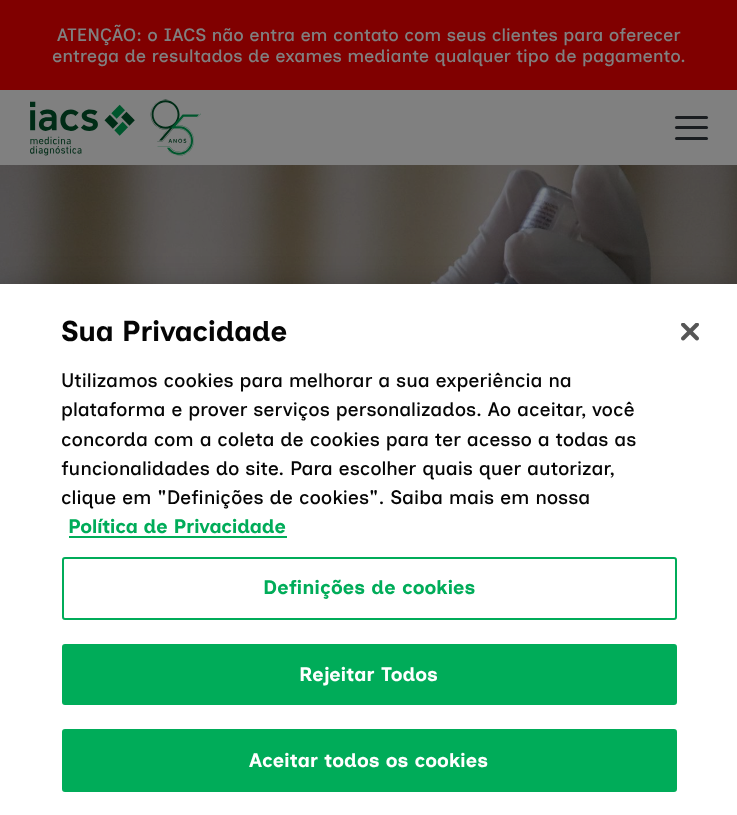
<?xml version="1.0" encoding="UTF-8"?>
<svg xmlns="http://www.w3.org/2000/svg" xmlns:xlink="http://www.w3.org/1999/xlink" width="737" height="815">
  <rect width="100%" height="100%" fill="#808080" />
  <rect width="737" height="90" fill="#800000" />
  <image x="30" y="99" width="171" height="57" xlink:href="image1.png" />
  <rect x="675" y="116" width="33" height="3" rx="1.5" fill="#1a1d20" />
  <rect x="675" y="126" width="33" height="3" rx="1.5" fill="#1a1d20" />
  <rect x="675" y="137" width="33" height="3" rx="1.5" fill="#1a1d20" />
  <image x="0" y="165" width="737" height="119" xlink:href="image2.png" />
  <rect y="284" width="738" height="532" fill="#000000" fill-opacity="0.2" filter="blur(13.5px)" />
  <rect y="284" width="737" height="531" fill="#ffffff" />
  <rect x="69" y="536" width="218" height="2" fill="#00ac59" />
  <rect x="63" y="558" width="613" height="61" rx="2" fill="none" stroke="#00ac59" stroke-width="2" />
  <rect x="63" y="645" width="613" height="59" rx="2" fill="#00ac59" stroke="#00ac59" stroke-width="2" />
  <rect x="63" y="730" width="613" height="61" rx="2" fill="#00ac59" stroke="#00ac59" stroke-width="2" />
  <image x="681" y="323" width="18" height="18" xlink:href="image3.png" />
  <text x="57" y="41" style="font-family: Inclusive Sans; font-size: 18px; font-weight: 500; fill: #808080">ATENÇÃO: o IACS não entra em contato com seus clientes para oferecer</text>
  <text x="52" y="62" style="font-family: Inclusive Sans; font-size: 18px; font-weight: 500; fill: #808080">entrega de resultados de exames mediante qualquer tipo de pagamento.</text>
  <text x="61" y="341" style="font-family: Inclusive Sans; font-size: 28.75px; font-weight: bold; fill: #050505">Sua Privacidade</text>
  <text x="61" y="387" style="font-family: Inclusive Sans; font-size: 19.5px; font-weight: 500; fill: #050505">Utilizamos cookies para melhorar a sua experiência na</text>
  <text x="61" y="416" style="font-family: Inclusive Sans; font-size: 19.5px; font-weight: 500; fill: #050505">plataforma e prover serviços personalizados. Ao aceitar, você</text>
  <text x="61" y="446" style="font-family: Inclusive Sans; font-size: 19.5px; font-weight: 500; fill: #050505">concorda com a coleta de cookies para ter acesso a todas as</text>
  <text x="61" y="475" style="font-family: Inclusive Sans; font-size: 19.5px; font-weight: 500; fill: #050505">funcionalidades do site. Para escolher quais quer autorizar,</text>
  <text x="61" y="504" style="font-family: Inclusive Sans; font-size: 19.5px; font-weight: 500; fill: #050505">clique em "Definições de cookies". Saiba mais em nossa</text>
  <text x="68" y="533" style="font-family: Inclusive Sans; font-size: 19.5px; font-weight: bold; fill: #00ac59">Política de Privacidade</text>
  <text x="263" y="594" style="font-family: Inclusive Sans; font-size: 19.5px; font-weight: bold; letter-spacing: 0.2px; fill: #00ac59">Definições de cookies</text>
  <text x="299" y="681" style="font-family: Inclusive Sans; font-size: 19.5px; font-weight: bold; letter-spacing: 0.2px; fill: #ffffff">Rejeitar Todos</text>
  <text x="249" y="767" style="font-family: Inclusive Sans; font-size: 19.5px; font-weight: bold; letter-spacing: 0.2px; fill: #ffffff">Aceitar todos os cookies</text>
</svg>
